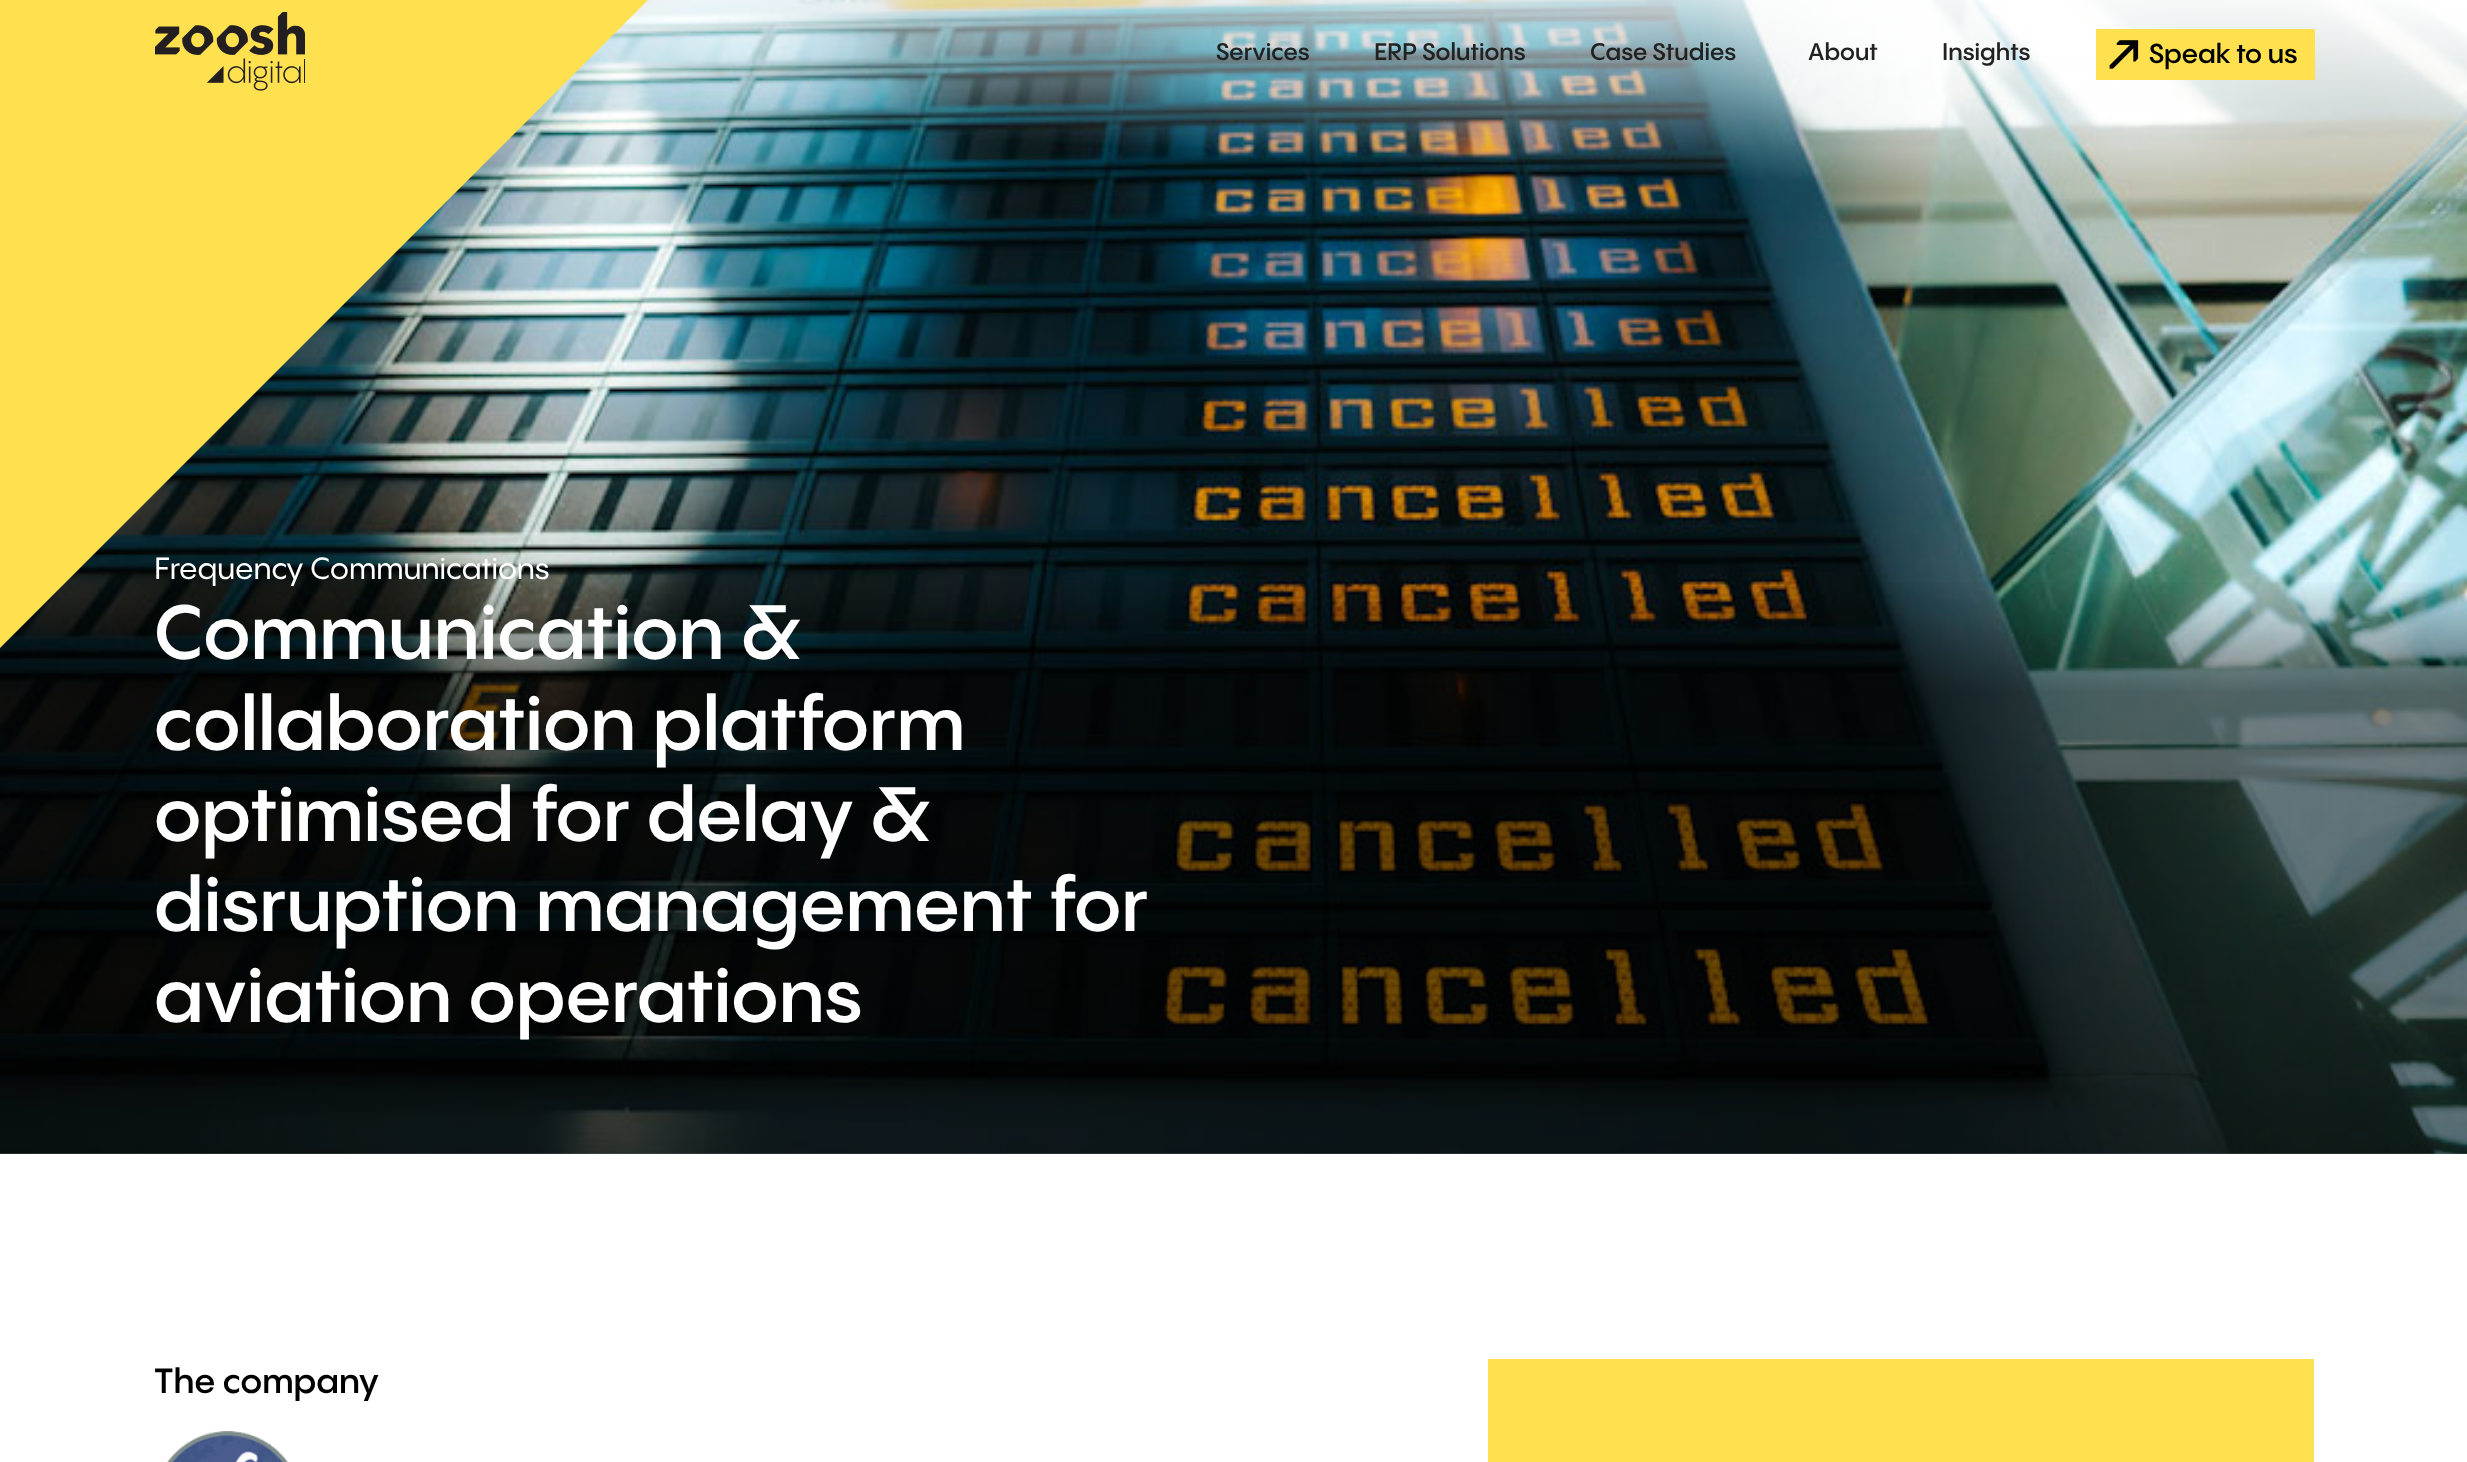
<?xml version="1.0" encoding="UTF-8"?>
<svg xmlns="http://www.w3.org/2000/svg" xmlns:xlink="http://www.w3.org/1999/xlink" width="2467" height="1462">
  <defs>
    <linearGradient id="g1" gradientUnits="userSpaceOnUse" x1="1234" y1="0" x2="1234" y2="1154"><stop offset="0.5" stop-color="#000000" stop-opacity="0" /><stop offset="0.6" stop-color="#000000" stop-opacity="0.5" /></linearGradient>
    <linearGradient id="g2" gradientUnits="userSpaceOnUse" x1="1267" y1="-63" x2="1200" y2="1216"><stop offset="0" stop-color="#ffffff" stop-opacity="0.96" /><stop offset="0.17" stop-color="#ffffff" stop-opacity="0" /></linearGradient>
  </defs>
  <rect width="100%" height="100%" fill="#ffffff" />
  <image x="0" y="0" width="2467" height="1154" xlink:href="image3.png" />
  <image x="0" y="1153" width="2467" height="1" xlink:href="image4.png" />
  <rect y="582" width="2467" height="572" fill="url(#g1)" />
  <rect x="536" width="1931" height="213" fill="url(#g2)" />
  <path d="M 0 648 v -648 h 648 z" fill="#ffe150" />
  <image x="155" y="12" width="150" height="79" xlink:href="image1.png" />
  <rect x="2096" y="29" width="219" height="51" fill="#ffe150" />
  <image x="2109" y="40" width="30" height="29" xlink:href="image2.png" />
  <image x="167" y="1431" width="121" height="31" xlink:href="image5.png" />
  <path d="M 2314 1359 v 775 l -113 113 h -713 v -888 z" fill="#ffe150" />
  <text x="1216" y="60" style="font-family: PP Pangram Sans; font-size: 23.75px; font-weight: 600; fill: #222222">Services</text>
  <text x="1374" y="60" style="font-family: PP Pangram Sans; font-size: 23.75px; font-weight: 600; fill: #222222">ERP Solutions</text>
  <text x="1590" y="60" style="font-family: PP Pangram Sans; font-size: 23.75px; font-weight: 600; fill: #222222">Case Studies</text>
  <text x="1808" y="60" style="font-family: PP Pangram Sans; font-size: 23.75px; font-weight: 600; fill: #222222">About</text>
  <text x="1942" y="60" style="font-family: PP Pangram Sans; font-size: 23.75px; font-weight: 600; fill: #222222">Insights</text>
  <text x="2149" y="63" style="font-family: PP Pangram Sans; font-size: 27px; font-weight: 600; letter-spacing: -0.1px; fill: #000000">Speak to us</text>
  <text x="154" y="579" style="font-family: PP Pangram Sans; font-size: 30.25px; font-weight: 500; fill: #ffffff">Frequency Communications</text>
  <text x="154" y="659" style="font-family: PP Pangram Sans; font-size: 75.6px; font-weight: 600; fill: #ffffff">Communication &amp;</text>
  <text x="154" y="750" style="font-family: PP Pangram Sans; font-size: 75.6px; font-weight: 600; fill: #ffffff">collaboration platform</text>
  <text x="154" y="841" style="font-family: PP Pangram Sans; font-size: 75.6px; font-weight: 600; fill: #ffffff">optimised for delay &amp;</text>
  <text x="154" y="931" style="font-family: PP Pangram Sans; font-size: 75.6px; font-weight: 600; fill: #ffffff">disruption management for</text>
  <text x="154" y="1022" style="font-family: PP Pangram Sans; font-size: 75.6px; font-weight: 600; fill: #ffffff">aviation operations</text>
  <text x="154" y="1393" style="font-family: PP Pangram Sans; font-size: 34.5px; font-weight: 600; fill: #000000">The company</text>
</svg>
